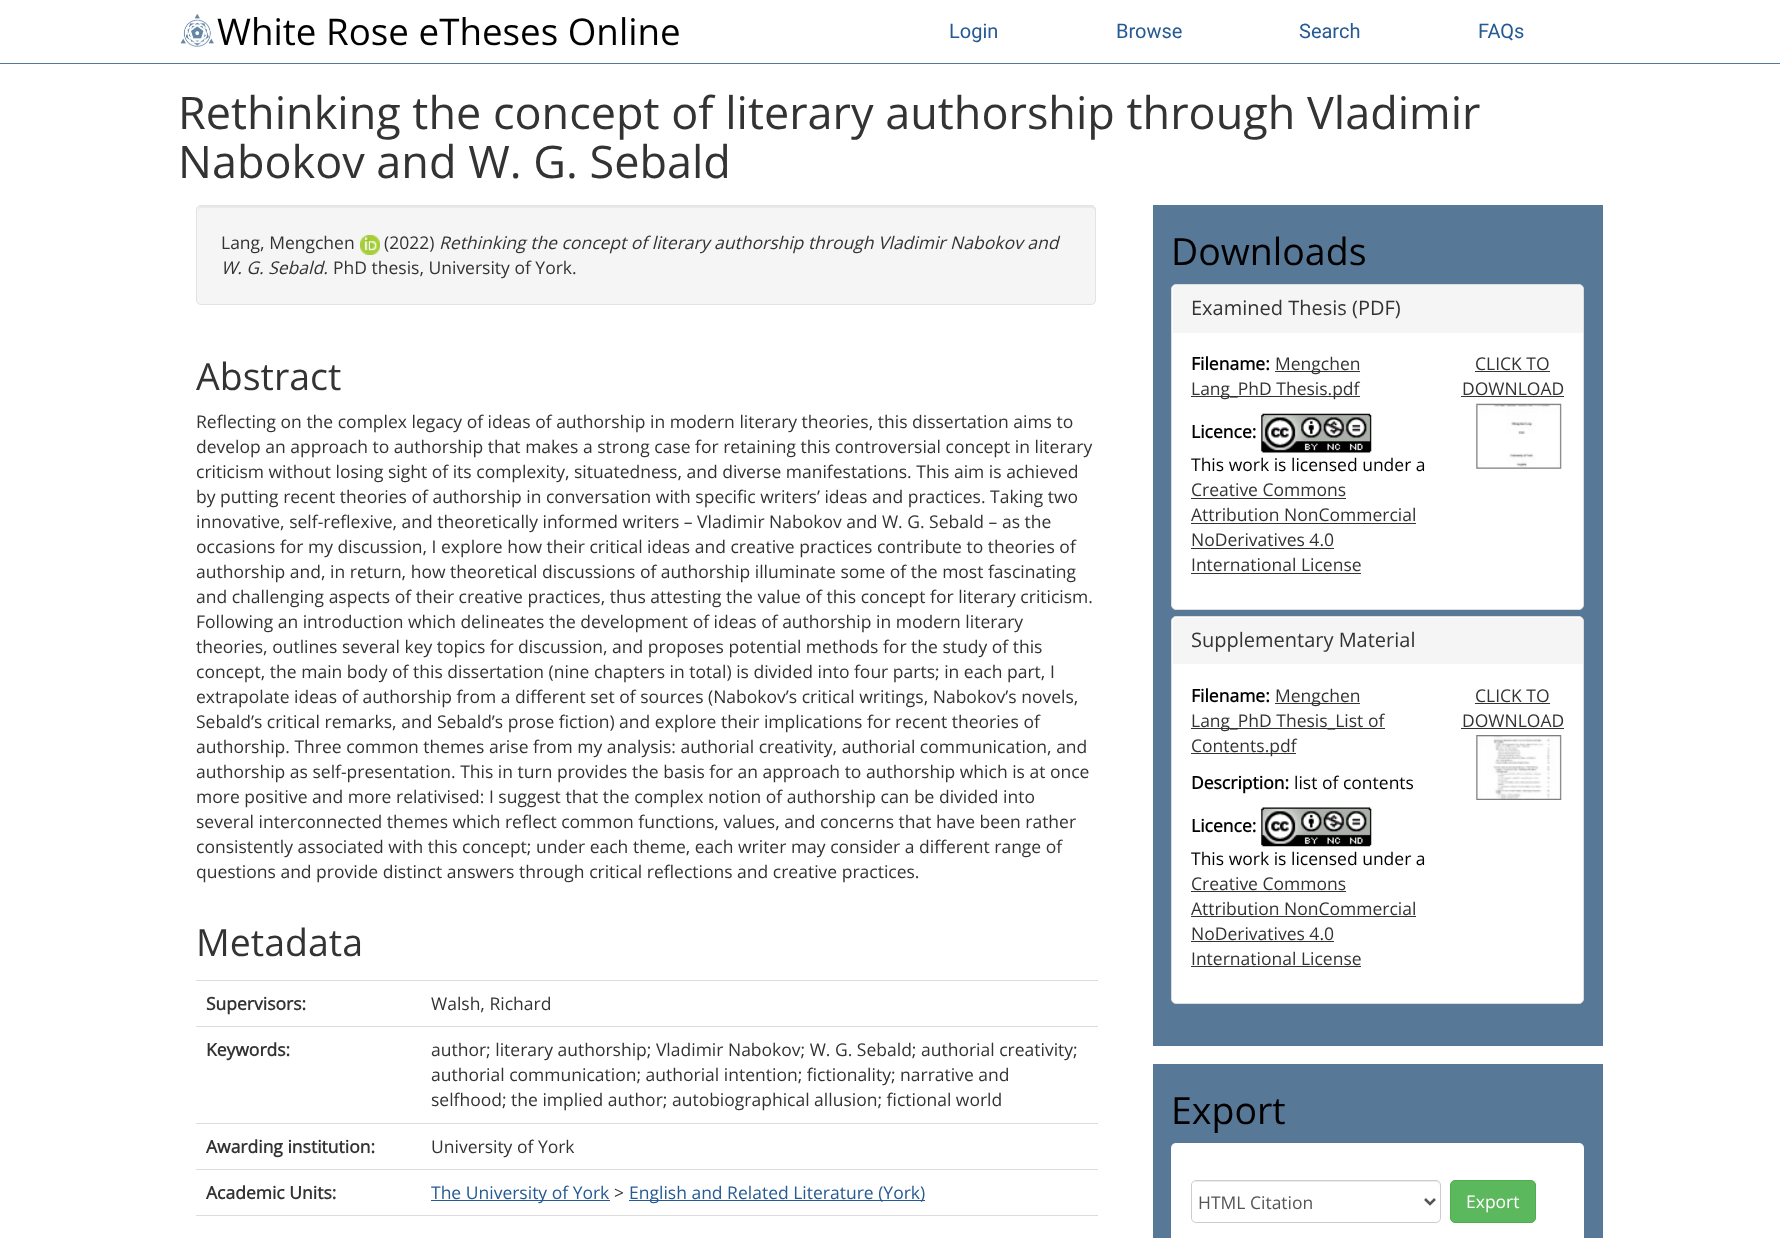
<?xml version="1.0" encoding="UTF-8"?>
<svg xmlns="http://www.w3.org/2000/svg" xmlns:xlink="http://www.w3.org/1999/xlink" width="1780" height="1238">
  <rect width="100%" height="100%" fill="#ffffff" />
  <rect y="63" width="1780" height="1" fill="#587898" />
  <image x="180" y="14" width="34" height="33" xlink:href="image1.png" />
  <rect x="196" y="205" width="900" height="100" rx="5" fill="#f5f5f5" />
  <path d="M 201 208 h 890 c 2 0 4 1 4 3 c 0 -3 -1 -5 -4 -5 h -889 c -3 0 -4 2 -4 5 c 0 -2 1 -3 3 -3 z" fill="#e9e9e9" />
  <rect x="196.5" y="205.5" width="899" height="99" rx="4.5" fill="none" stroke="#e3e3e3" />
  <image x="360" y="235" width="20" height="20" xlink:href="image2.png" />
  <rect x="196" y="980" width="902" height="1" fill="#dddddd" />
  <rect x="196" y="1026" width="902" height="1" fill="#dddddd" />
  <rect x="196" y="1123" width="902" height="1" fill="#dddddd" />
  <rect x="196" y="1169" width="902" height="1" fill="#dddddd" />
  <rect x="431" y="1200" width="179" height="1" fill="#255a92" />
  <rect x="629" y="1200" width="296" height="1" fill="#255a92" />
  <rect x="196" y="1215" width="902" height="1" fill="#dddddd" />
  <rect x="1153" y="205" width="450" height="841" fill="#587898" />
  <rect x="1171.5" y="284.5" width="412" height="325" rx="4.5" fill="#ffffff" stroke="#dddddd" />
  <path d="M 1177 285 h 402 c 2 0 4 2 4 4 v 44 h -410 v -44 c 0 -2 2 -4 4 -4 z" fill="#f5f5f5" />
  <rect x="1275" y="371" width="85" height="1" fill="#333333" />
  <rect x="1191" y="396" width="169" height="1" fill="#333333" />
  <image x="1261" y="413" width="111" height="40" xlink:href="image3.png" />
  <rect x="1191" y="498" width="155" height="1" fill="#333333" />
  <rect x="1191" y="523" width="225" height="1" fill="#333333" />
  <rect x="1191" y="548" width="143" height="1" fill="#333333" />
  <rect x="1191" y="573" width="170" height="1" fill="#333333" />
  <rect x="1475" y="371" width="75" height="1" fill="#333333" />
  <rect x="1461" y="396" width="103" height="1" fill="#333333" />
  <image x="1476" y="403" width="86" height="66" xlink:href="image4.png" />
  <rect x="1171.5" y="616.5" width="412" height="387" rx="4.5" fill="#ffffff" stroke="#dddddd" />
  <path d="M 1177 618 h 402 c 2 0 4 2 4 4 v 42 h -410 v -42 c 0 -2 2 -4 4 -4 z" fill="#f5f5f5" />
  <rect x="1275" y="703" width="85" height="1" fill="#333333" />
  <rect x="1191" y="728" width="194" height="1" fill="#333333" />
  <rect x="1191" y="753" width="105" height="1" fill="#333333" />
  <image x="1261" y="807" width="111" height="40" xlink:href="image5.png" />
  <rect x="1191" y="891" width="155" height="1" fill="#333333" />
  <rect x="1191" y="916" width="225" height="1" fill="#333333" />
  <rect x="1191" y="941" width="143" height="1" fill="#333333" />
  <rect x="1191" y="966" width="170" height="1" fill="#333333" />
  <rect x="1475" y="703" width="75" height="1" fill="#333333" />
  <rect x="1461" y="728" width="103" height="1" fill="#333333" />
  <image x="1476" y="735" width="86" height="65" xlink:href="image6.png" />
  <rect x="1153" y="1064" width="450" height="174" fill="#587898" />
  <rect x="1171" y="1143" width="413" height="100" rx="5" fill="#ffffff" />
  <path d="M 1196 1182 h 240 c 2 0 4 2 4 4 v -1 c 0 -2 -2 -4 -4 -4 h -239 c -1 0 -3 1 -3 2 z" fill="#ececec" />
  <rect x="1191.5" y="1180.5" width="249" height="42" rx="4.5" fill="none" stroke="#cccccc" />
  <path d="M 1425 1199 l 5 5 l 5 -5" fill="none" stroke="#555555" stroke-width="2.5" />
  <rect x="1450.5" y="1180.5" width="85" height="42" rx="4.5" fill="#5cb85c" stroke="#4cae4c" />
  <text x="217" y="45" style="font-family: Open Sans; font-size: 36.75px; fill: #000000">White Rose eTheses Online</text>
  <text x="949" y="38" style="font-family: Roboto; font-size: 20px; fill: #255a92">Login</text>
  <text x="1116" y="38" style="font-family: Roboto; font-size: 20px; fill: #255a92">Browse</text>
  <text x="1299" y="38" style="font-family: Roboto; font-size: 20px; fill: #255a92">Search</text>
  <text x="1478" y="38" style="font-family: Roboto; font-size: 20px; fill: #255a92">FAQs</text>
  <text x="178" y="129" style="font-family: Open Sans; font-size: 45px; fill: #333333">Rethinking the concept of literary authorship through Vladimir</text>
  <text x="178" y="178" style="font-family: Open Sans; font-size: 45px; fill: #333333">Nabokov and W. G. Sebald</text>
  <text x="221" y="249" style="font-family: Open Sans; font-size: 17.5px; fill: #333333">Lang, Mengchen</text>
  <text x="384" y="249" style="font-family: Open Sans; font-size: 17.5px; fill: #333333">(2022)</text>
  <text x="439" y="249" style="font-family: Open Sans; font-size: 17.5px; font-style: italic; fill: #333333">Rethinking the concept of literary authorship through Vladimir Nabokov and</text>
  <text x="221" y="274" style="font-family: Open Sans; font-size: 17.5px; font-style: italic; fill: #333333">W. G. Sebald.</text>
  <text x="333" y="274" style="font-family: Open Sans; font-size: 17.5px; fill: #333333">PhD thesis, University of York.</text>
  <text x="196" y="390" style="font-family: Open Sans; font-size: 37.5px; fill: #333333">Abstract</text>
  <text x="196" y="428" style="font-family: Open Sans; font-size: 17.5px; fill: #333333">Reflecting on the complex legacy of ideas of authorship in modern literary theories, this dissertation aims to</text>
  <text x="196" y="453" style="font-family: Open Sans; font-size: 17.5px; fill: #333333">develop an approach to authorship that makes a strong case for retaining this controversial concept in literary</text>
  <text x="196" y="478" style="font-family: Open Sans; font-size: 17.5px; fill: #333333">criticism without losing sight of its complexity, situatedness, and diverse manifestations. This aim is achieved</text>
  <text x="196" y="503" style="font-family: Open Sans; font-size: 17.5px; fill: #333333">by putting recent theories of authorship in conversation with specific writers’ ideas and practices. Taking two</text>
  <text x="196" y="528" style="font-family: Open Sans; font-size: 17.5px; fill: #333333">innovative, self-reflexive, and theoretically informed writers – Vladimir Nabokov and W. G. Sebald – as the</text>
  <text x="196" y="553" style="font-family: Open Sans; font-size: 17.5px; fill: #333333">occasions for my discussion, I explore how their critical ideas and creative practices contribute to theories of</text>
  <text x="196" y="578" style="font-family: Open Sans; font-size: 17.5px; fill: #333333">authorship and, in return, how theoretical discussions of authorship illuminate some of the most fascinating</text>
  <text x="196" y="603" style="font-family: Open Sans; font-size: 17.5px; fill: #333333">and challenging aspects of their creative practices, thus attesting the value of this concept for literary criticism.</text>
  <text x="196" y="628" style="font-family: Open Sans; font-size: 17.5px; fill: #333333">Following an introduction which delineates the development of ideas of authorship in modern literary</text>
  <text x="196" y="653" style="font-family: Open Sans; font-size: 17.5px; fill: #333333">theories, outlines several key topics for discussion, and proposes potential methods for the study of this</text>
  <text x="196" y="678" style="font-family: Open Sans; font-size: 17.5px; fill: #333333">concept, the main body of this dissertation (nine chapters in total) is divided into four parts; in each part, I</text>
  <text x="196" y="703" style="font-family: Open Sans; font-size: 17.5px; fill: #333333">extrapolate ideas of authorship from a different set of sources (Nabokov’s critical writings, Nabokov’s novels,</text>
  <text x="196" y="728" style="font-family: Open Sans; font-size: 17.5px; fill: #333333">Sebald’s critical remarks, and Sebald’s prose fiction) and explore their implications for recent theories of</text>
  <text x="196" y="753" style="font-family: Open Sans; font-size: 17.5px; fill: #333333">authorship. Three common themes arise from my analysis: authorial creativity, authorial communication, and</text>
  <text x="196" y="778" style="font-family: Open Sans; font-size: 17.5px; fill: #333333">authorship as self-presentation. This in turn provides the basis for an approach to authorship which is at once</text>
  <text x="196" y="803" style="font-family: Open Sans; font-size: 17.5px; fill: #333333">more positive and more relativised: I suggest that the complex notion of authorship can be divided into</text>
  <text x="196" y="828" style="font-family: Open Sans; font-size: 17.5px; fill: #333333">several interconnected themes which reflect common functions, values, and concerns that have been rather</text>
  <text x="196" y="853" style="font-family: Open Sans; font-size: 17.5px; fill: #333333">consistently associated with this concept; under each theme, each writer may consider a different range of</text>
  <text x="196" y="878" style="font-family: Open Sans; font-size: 17.5px; fill: #333333">questions and provide distinct answers through critical reflections and creative practices.</text>
  <text x="196" y="956" style="font-family: Open Sans; font-size: 37.5px; fill: #333333">Metadata</text>
  <text x="206" y="1010" style="font-family: Open Sans; font-size: 17.5px; font-weight: bold; fill: #333333">Supervisors:</text>
  <text x="431" y="1010" style="font-family: Open Sans; font-size: 17.5px; fill: #333333">Walsh, Richard</text>
  <text x="206" y="1056" style="font-family: Open Sans; font-size: 17.5px; font-weight: bold; fill: #333333">Keywords:</text>
  <text x="431" y="1056" style="font-family: Open Sans; font-size: 17.5px; fill: #333333">author; literary authorship; Vladimir Nabokov; W. G. Sebald; authorial creativity;</text>
  <text x="431" y="1081" style="font-family: Open Sans; font-size: 17.5px; fill: #333333">authorial communication; authorial intention; fictionality; narrative and</text>
  <text x="431" y="1106" style="font-family: Open Sans; font-size: 17.5px; fill: #333333">selfhood; the implied author; autobiographical allusion; fictional world</text>
  <text x="206" y="1153" style="font-family: Open Sans; font-size: 17.5px; font-weight: bold; fill: #333333">Awarding institution:</text>
  <text x="431" y="1153" style="font-family: Open Sans; font-size: 17.5px; fill: #333333">University of York</text>
  <text x="206" y="1199" style="font-family: Open Sans; font-size: 17.5px; font-weight: bold; fill: #333333">Academic Units:</text>
  <text x="431" y="1199" style="font-family: Open Sans; font-size: 17.5px; fill: #255a92">The University of York</text>
  <text x="614" y="1199" style="font-family: Open Sans; font-size: 17.5px; fill: #333333">&gt;</text>
  <text x="629" y="1199" style="font-family: Open Sans; font-size: 17.5px; fill: #255a92">English and Related Literature (York)</text>
  <text x="1171" y="265" style="font-family: Open Sans; font-size: 37.5px; fill: #000000">Downloads</text>
  <text x="1191" y="315" style="font-family: Open Sans; font-size: 20px; fill: #333333">Examined Thesis (PDF)</text>
  <text x="1191" y="370" style="font-family: Open Sans; font-size: 17.5px; font-weight: bold; fill: #000000">Filename:</text>
  <text x="1275" y="370" style="font-family: Open Sans; font-size: 17.5px; fill: #333333">Mengchen</text>
  <text x="1191" y="395" style="font-family: Open Sans; font-size: 17.5px; fill: #333333">Lang_PhD Thesis.pdf</text>
  <text x="1191" y="438" style="font-family: Open Sans; font-size: 17.5px; font-weight: bold; fill: #000000">Licence:</text>
  <text x="1191" y="471" style="font-family: Open Sans; font-size: 17.5px; fill: #000000">This work is licensed under a</text>
  <text x="1191" y="496" style="font-family: Open Sans; font-size: 17.5px; fill: #333333">Creative Commons</text>
  <text x="1191" y="521" style="font-family: Open Sans; font-size: 17.5px; fill: #333333">Attribution NonCommercial</text>
  <text x="1191" y="546" style="font-family: Open Sans; font-size: 17.5px; fill: #333333">NoDerivatives 4.0</text>
  <text x="1191" y="571" style="font-family: Open Sans; font-size: 17.5px; fill: #333333">International License</text>
  <text x="1475" y="370" style="font-family: Open Sans; font-size: 17.5px; fill: #333333">CLICK TO</text>
  <text x="1462" y="395" style="font-family: Open Sans; font-size: 17.5px; fill: #333333">DOWNLOAD</text>
  <text x="1191" y="647" style="font-family: Open Sans; font-size: 20px; fill: #333333">Supplementary Material</text>
  <text x="1191" y="702" style="font-family: Open Sans; font-size: 17.5px; font-weight: bold; fill: #000000">Filename:</text>
  <text x="1275" y="702" style="font-family: Open Sans; font-size: 17.5px; fill: #333333">Mengchen</text>
  <text x="1191" y="727" style="font-family: Open Sans; font-size: 17.5px; fill: #333333">Lang_PhD Thesis_List of</text>
  <text x="1191" y="752" style="font-family: Open Sans; font-size: 17.5px; fill: #333333">Contents.pdf</text>
  <text x="1191" y="789" style="font-family: Open Sans; font-size: 17.5px; font-weight: bold; fill: #000000">Description:</text>
  <text x="1294" y="789" style="font-family: Open Sans; font-size: 17.5px; fill: #000000">list of contents</text>
  <text x="1191" y="832" style="font-family: Open Sans; font-size: 17.5px; font-weight: bold; fill: #000000">Licence:</text>
  <text x="1191" y="865" style="font-family: Open Sans; font-size: 17.5px; fill: #000000">This work is licensed under a</text>
  <text x="1191" y="890" style="font-family: Open Sans; font-size: 17.5px; fill: #333333">Creative Commons</text>
  <text x="1191" y="915" style="font-family: Open Sans; font-size: 17.5px; fill: #333333">Attribution NonCommercial</text>
  <text x="1191" y="940" style="font-family: Open Sans; font-size: 17.5px; fill: #333333">NoDerivatives 4.0</text>
  <text x="1191" y="965" style="font-family: Open Sans; font-size: 17.5px; fill: #333333">International License</text>
  <text x="1475" y="702" style="font-family: Open Sans; font-size: 17.5px; fill: #333333">CLICK TO</text>
  <text x="1462" y="727" style="font-family: Open Sans; font-size: 17.5px; fill: #333333">DOWNLOAD</text>
  <text x="1171" y="1124" style="font-family: Open Sans; font-size: 37.5px; fill: #000000">Export</text>
  <text x="1198" y="1209" style="font-family: Open Sans; font-size: 17.5px; fill: #555555">HTML Citation</text>
  <text x="1466" y="1208" style="font-family: Open Sans; font-size: 17.5px; fill: #ffffff">Export</text>
</svg>
